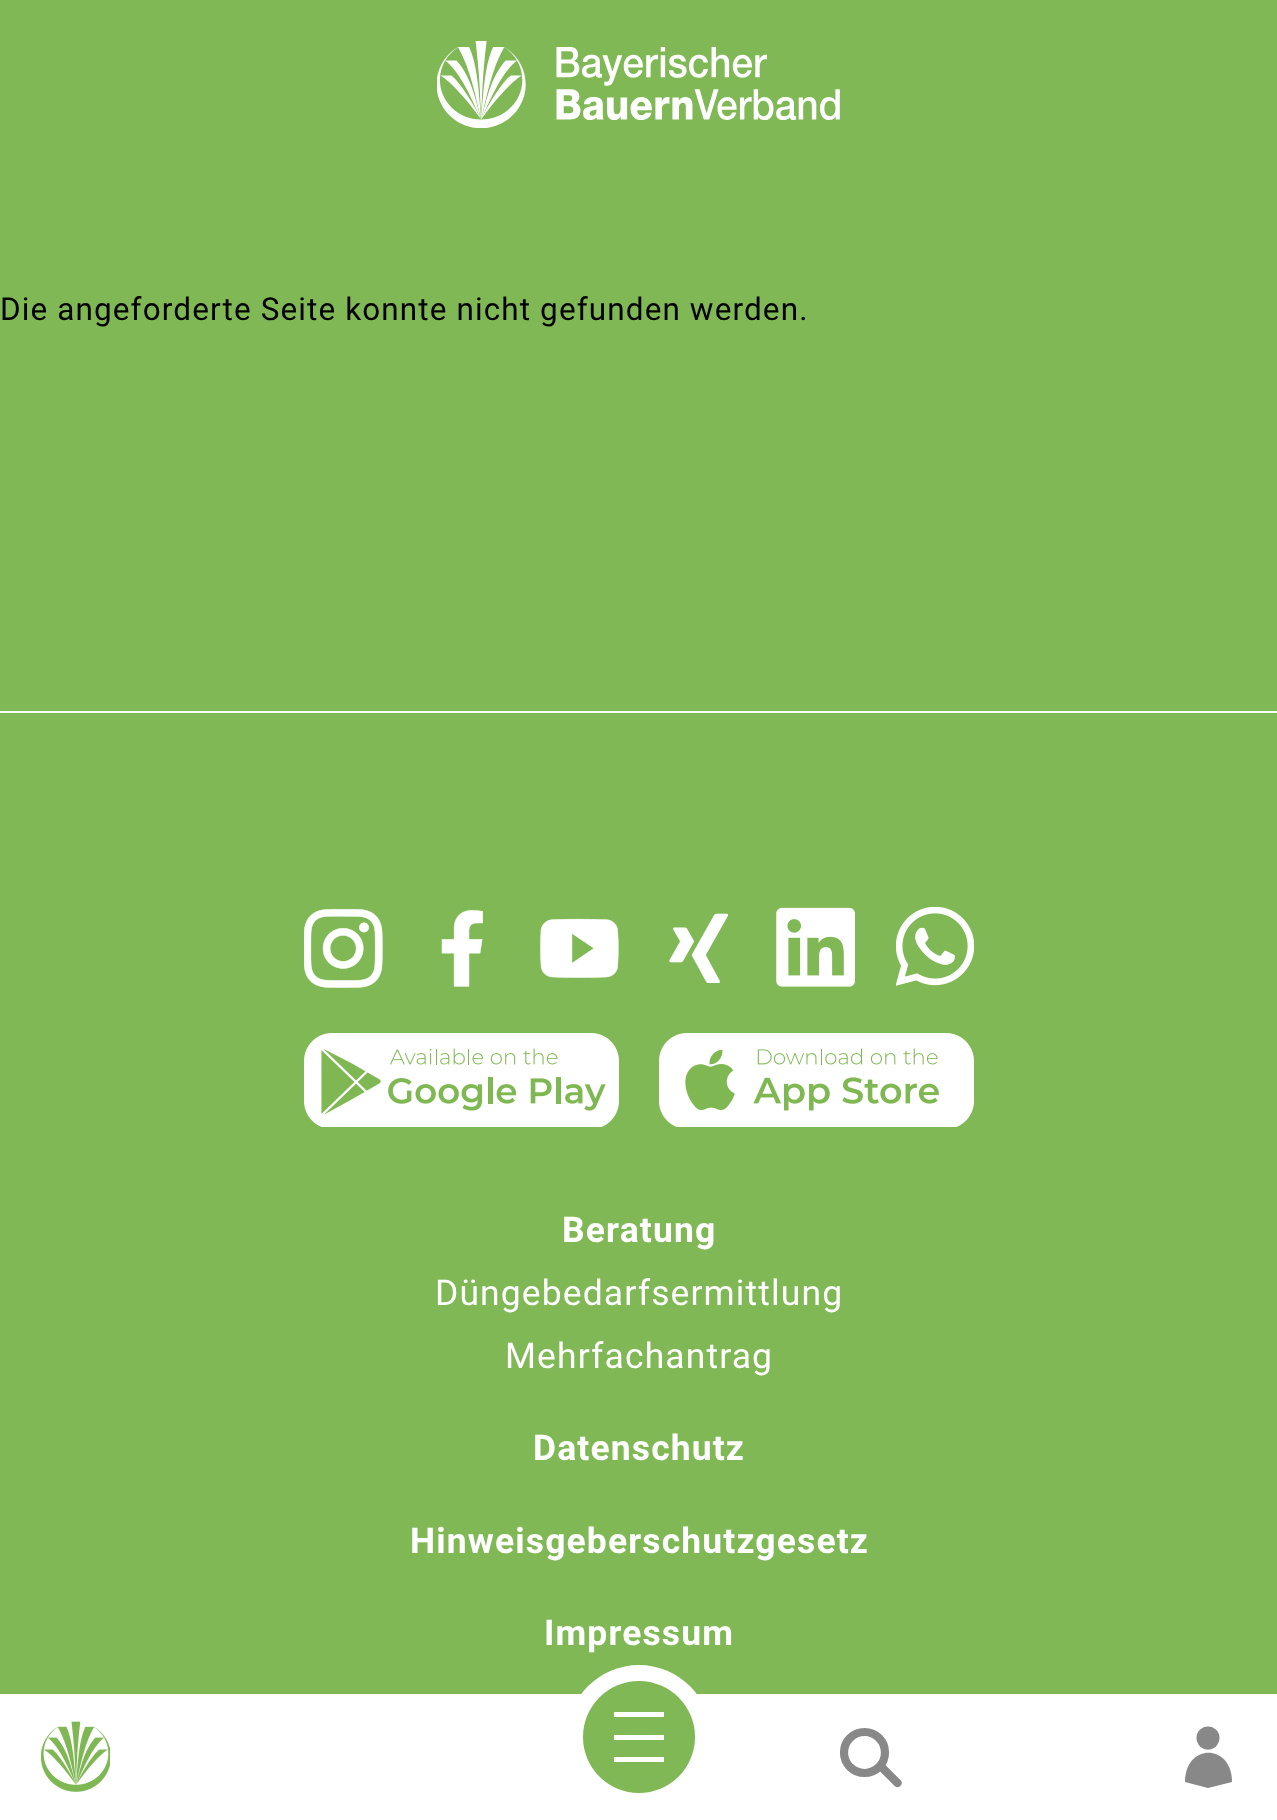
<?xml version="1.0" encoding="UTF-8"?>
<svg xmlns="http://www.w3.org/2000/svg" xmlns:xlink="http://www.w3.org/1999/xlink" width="1277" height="1820">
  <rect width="100%" height="100%" fill="#ffffff" />
  <rect width="1277" height="711" fill="#7fb854" />
  <image x="437" y="41" width="403" height="87" xlink:href="image1.png" />
  <rect y="713" width="1277" height="981" fill="#7fb854" />
  <image x="304" y="909" width="79" height="79" xlink:href="image2.png" />
  <image x="441" y="910" width="42" height="77" xlink:href="image3.png" />
  <image x="540" y="918" width="79" height="60" xlink:href="image4.png" />
  <image x="669" y="913" width="60" height="70" xlink:href="image5.png" />
  <image x="776" y="907" width="79" height="80" xlink:href="image6.png" />
  <image x="896" y="907" width="78" height="79" xlink:href="image7.png" />
  <image x="304" y="1033" width="315" height="94" xlink:href="image8.png" />
  <image x="659" y="1033" width="315" height="94" xlink:href="image9.png" />
  <image x="41" y="1721" width="69" height="71" xlink:href="image10.png" />
  <circle cx="639" cy="1737" r="72" fill="#ffffff" />
  <circle cx="639" cy="1737" r="56" fill="#7fb854" />
  <rect x="614" y="1712" width="50" height="5" fill="#ffffff" />
  <rect x="614" y="1735" width="50" height="5" fill="#ffffff" />
  <rect x="614" y="1757" width="50" height="5" fill="#ffffff" />
  <circle cx="864.5" cy="1752.5" r="20.5" fill="none" stroke="#888888" stroke-width="8.2" />
  <path d="M 880.5 1766 l 17 17" fill="none" stroke="#888888" stroke-width="8.2" stroke-linecap="round" />
  <path d="M 1185 1782 c 0 -39 47 -39 47 0 l -24 6 z" fill="#888888" />
  <circle cx="1208" cy="1738" r="11.5" fill="#888888" />
  <text x="0" y="320" style="font-family: Roboto; font-size: 31.5px; letter-spacing: 1.12px; fill: #000000">Die angeforderte Seite konnte nicht gefunden werden.</text>
  <text x="562" y="1242" style="font-family: Roboto; font-size: 35.5px; font-weight: bold; letter-spacing: 1.12px; fill: #ffffff">Beratung</text>
  <text x="435" y="1305" style="font-family: Roboto; font-size: 35.5px; letter-spacing: 1.12px; fill: #ffffff">Düngebedarfsermittlung</text>
  <text x="505" y="1368" style="font-family: Roboto; font-size: 35.5px; letter-spacing: 1.12px; fill: #ffffff">Mehrfachantrag</text>
  <text x="533" y="1460" style="font-family: Roboto; font-size: 35.5px; font-weight: bold; letter-spacing: 1.12px; fill: #ffffff">Datenschutz</text>
  <text x="410" y="1553" style="font-family: Roboto; font-size: 35.5px; font-weight: bold; letter-spacing: 1.12px; fill: #ffffff">Hinweisgeberschutzgesetz</text>
  <text x="544" y="1645" style="font-family: Roboto; font-size: 35.5px; font-weight: bold; letter-spacing: 1.12px; fill: #ffffff">Impressum</text>
</svg>
